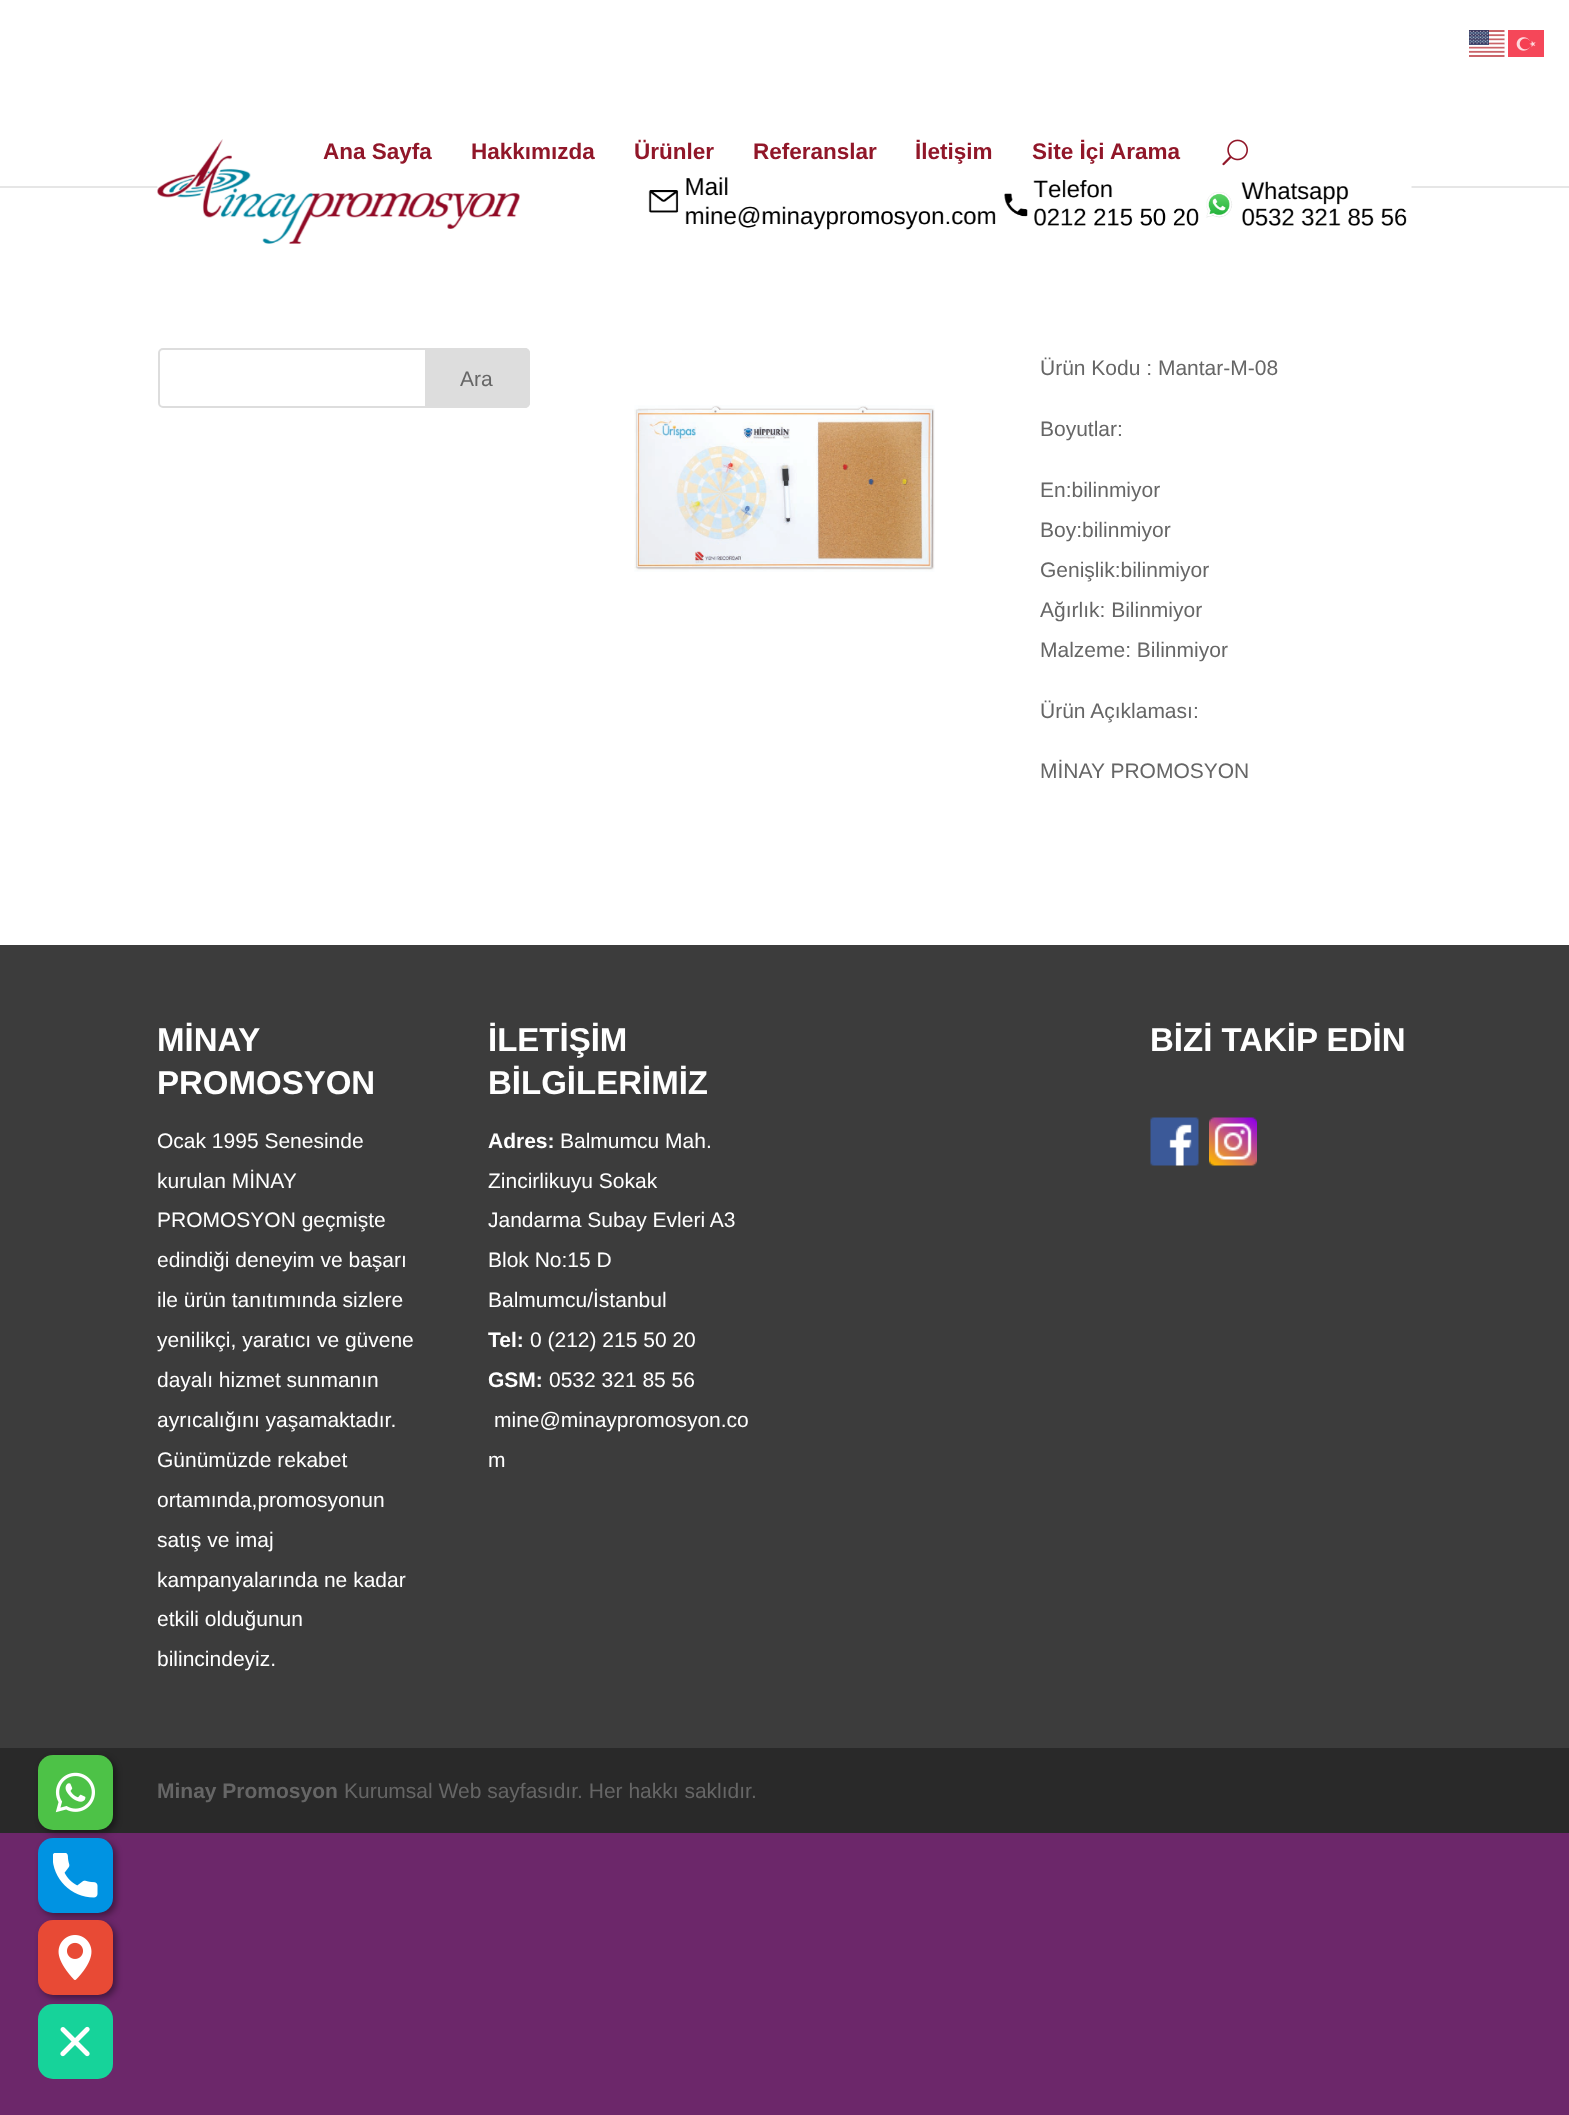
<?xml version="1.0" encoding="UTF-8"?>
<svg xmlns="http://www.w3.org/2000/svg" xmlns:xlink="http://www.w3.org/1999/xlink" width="1569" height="2115">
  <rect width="100%" height="100%" fill="#6c276a" />
  <rect width="1569" height="186" fill="#ffffff" />
  <image x="1469" y="30" width="36" height="27" xlink:href="image1.png" />
  <image x="1508" y="30" width="36" height="27" xlink:href="image2.png" />
  <rect y="186" width="1569" height="2" fill="#e6e6e6" />
  <rect y="188" width="1569" height="757" fill="#ffffff" />
  <image x="157" y="139" width="1255" height="105" xlink:href="image3.png" />
  <image x="1222" y="139" width="26" height="27" xlink:href="image4.png" />
  <rect x="159" y="349" width="370" height="58" rx="4" fill="none" stroke="#dddddd" stroke-width="2" />
  <path d="M 426 349 h 99 c 2 0 4 2 4 4 v 50 c 0 2 -2 4 -4 4 h -99 z" fill="#dddddd" stroke="#dddddd" stroke-width="2" />
  <image x="634" y="405" width="301" height="167" xlink:href="image5.png" />
  <rect y="945" width="1569" height="803" fill="#3c3c3c" />
  <image x="1150" y="1117" width="49" height="49" xlink:href="image6.png" />
  <image x="1209" y="1117" width="48" height="49" xlink:href="image7.png" />
  <rect y="1748" width="1569" height="85" fill="#292929" />
  <rect x="41" y="1758" width="75" height="75" rx="15" fill="#000000" fill-opacity="0.4" filter="blur(3px)" />
  <rect x="38" y="1755" width="75" height="75" rx="15" fill="#4dc247" />
  <image x="55" y="1772" width="40" height="41" xlink:href="image8.png" />
  <rect x="41" y="1841" width="75" height="75" rx="15" fill="#000000" fill-opacity="0.4" filter="blur(3px)" />
  <rect x="38" y="1838" width="75" height="75" rx="15" fill="#0093e2" />
  <image x="53" y="1853" width="45" height="45" xlink:href="image9.png" />
  <rect x="41" y="1923" width="75" height="75" rx="15" fill="#000000" fill-opacity="0.4" filter="blur(3px)" />
  <rect x="38" y="1920" width="75" height="75" rx="15" fill="#e84a35" />
  <image x="58" y="1935" width="34" height="45" xlink:href="image10.png" />
  <rect x="38" y="2004" width="75" height="75" rx="15" fill="#16d39a" />
  <image x="60" y="2026" width="30" height="31" xlink:href="image11.png" />
  <text x="323" y="159" style="font-family: Liberation Sans; font-size: 22.5px; font-weight: bold; fill: #911729">Ana Sayfa</text>
  <text x="471" y="159" style="font-family: Liberation Sans; font-size: 22.5px; font-weight: bold; fill: #911729">Hakkımızda</text>
  <text x="634" y="159" style="font-family: Liberation Sans; font-size: 22.5px; font-weight: bold; fill: #911729">Ürünler</text>
  <text x="753" y="159" style="font-family: Liberation Sans; font-size: 22.5px; font-weight: bold; fill: #911729">Referanslar</text>
  <text x="915" y="159" style="font-family: Liberation Sans; font-size: 22.5px; font-weight: bold; fill: #911729">İletişim</text>
  <text x="1032" y="159" style="font-family: Liberation Sans; font-size: 22.5px; font-weight: bold; fill: #911729">Site İçi Arama</text>
  <text x="460" y="386" style="font-family: Liberation Sans; font-size: 21px; fill: #666666">Ara</text>
  <text x="1040" y="375" style="font-family: Liberation Sans; font-size: 21px; fill: #666666">Ürün Kodu : Mantar-M-08</text>
  <text x="1040" y="436" style="font-family: Liberation Sans; font-size: 21px; fill: #666666">Boyutlar:</text>
  <text x="1040" y="497" style="font-family: Liberation Sans; font-size: 21px; fill: #666666">En:bilinmiyor</text>
  <text x="1040" y="537" style="font-family: Liberation Sans; font-size: 21px; fill: #666666">Boy:bilinmiyor</text>
  <text x="1040" y="577" style="font-family: Liberation Sans; font-size: 21px; fill: #666666">Genişlik:bilinmiyor</text>
  <text x="1040" y="617" style="font-family: Liberation Sans; font-size: 21px; fill: #666666">Ağırlık: Bilinmiyor</text>
  <text x="1040" y="657" style="font-family: Liberation Sans; font-size: 21px; fill: #666666">Malzeme: Bilinmiyor</text>
  <text x="1040" y="718" style="font-family: Liberation Sans; font-size: 21px; fill: #666666">Ürün Açıklaması:</text>
  <text x="1040" y="778" style="font-family: Liberation Sans; font-size: 21px; fill: #666666">MİNAY PROMOSYON</text>
  <text x="157" y="1051" style="font-family: Liberation Sans; font-size: 33px; font-weight: bold; fill: #ffffff">MİNAY</text>
  <text x="157" y="1094" style="font-family: Liberation Sans; font-size: 33px; font-weight: bold; fill: #ffffff">PROMOSYON</text>
  <text x="157" y="1148" style="font-family: Liberation Sans; font-size: 21px; fill: #ffffff">Ocak 1995 Senesinde</text>
  <text x="157" y="1188" style="font-family: Liberation Sans; font-size: 21px; fill: #ffffff">kurulan MİNAY</text>
  <text x="157" y="1227" style="font-family: Liberation Sans; font-size: 21px; fill: #ffffff">PROMOSYON geçmişte</text>
  <text x="157" y="1267" style="font-family: Liberation Sans; font-size: 21px; fill: #ffffff">edindiği deneyim ve başarı</text>
  <text x="157" y="1307" style="font-family: Liberation Sans; font-size: 21px; fill: #ffffff">ile ürün tanıtımında sizlere</text>
  <text x="157" y="1347" style="font-family: Liberation Sans; font-size: 21px; fill: #ffffff">yenilikçi, yaratıcı ve güvene</text>
  <text x="157" y="1387" style="font-family: Liberation Sans; font-size: 21px; fill: #ffffff">dayalı hizmet sunmanın</text>
  <text x="157" y="1427" style="font-family: Liberation Sans; font-size: 21px; fill: #ffffff">ayrıcalığını yaşamaktadır.</text>
  <text x="157" y="1467" style="font-family: Liberation Sans; font-size: 21px; fill: #ffffff">Günümüzde rekabet</text>
  <text x="157" y="1507" style="font-family: Liberation Sans; font-size: 21px; fill: #ffffff">ortamında,promosyonun</text>
  <text x="157" y="1547" style="font-family: Liberation Sans; font-size: 21px; fill: #ffffff">satış ve imaj</text>
  <text x="157" y="1587" style="font-family: Liberation Sans; font-size: 21px; fill: #ffffff">kampanyalarında ne kadar</text>
  <text x="157" y="1626" style="font-family: Liberation Sans; font-size: 21px; fill: #ffffff">etkili olduğunun</text>
  <text x="157" y="1666" style="font-family: Liberation Sans; font-size: 21px; fill: #ffffff">bilincindeyiz.</text>
  <text x="488" y="1051" style="font-family: Liberation Sans; font-size: 33px; font-weight: bold; fill: #ffffff">İLETİŞİM</text>
  <text x="488" y="1094" style="font-family: Liberation Sans; font-size: 33px; font-weight: bold; fill: #ffffff">BİLGİLERİMİZ</text>
  <text x="488" y="1148" style="font-family: Liberation Sans; font-size: 21px; font-weight: bold; fill: #ffffff">Adres:</text>
  <text x="560" y="1148" style="font-family: Liberation Sans; font-size: 21px; fill: #ffffff">Balmumcu Mah.</text>
  <text x="488" y="1188" style="font-family: Liberation Sans; font-size: 21px; fill: #ffffff">Zincirlikuyu Sokak</text>
  <text x="488" y="1227" style="font-family: Liberation Sans; font-size: 21px; fill: #ffffff">Jandarma Subay Evleri A3</text>
  <text x="488" y="1267" style="font-family: Liberation Sans; font-size: 21px; fill: #ffffff">Blok No:15 D</text>
  <text x="488" y="1307" style="font-family: Liberation Sans; font-size: 21px; fill: #ffffff">Balmumcu/İstanbul</text>
  <text x="488" y="1347" style="font-family: Liberation Sans; font-size: 21px; font-weight: bold; fill: #ffffff">Tel:</text>
  <text x="530" y="1347" style="font-family: Liberation Sans; font-size: 21px; fill: #ffffff">0 (212) 215 50 20</text>
  <text x="488" y="1387" style="font-family: Liberation Sans; font-size: 21px; font-weight: bold; fill: #ffffff">GSM:</text>
  <text x="549" y="1387" style="font-family: Liberation Sans; font-size: 21px; fill: #ffffff">0532 321 85 56</text>
  <text x="494" y="1427" style="font-family: Liberation Sans; font-size: 21px; fill: #ffffff">mine@minaypromosyon.co</text>
  <text x="488" y="1467" style="font-family: Liberation Sans; font-size: 21px; fill: #ffffff">m</text>
  <text x="1150" y="1051" style="font-family: Liberation Sans; font-size: 33px; font-weight: bold; fill: #ffffff">BİZİ TAKİP EDİN</text>
  <text x="157" y="1798" style="font-family: Liberation Sans; font-size: 21px; font-weight: bold; fill: #666666">Minay Promosyon</text>
  <text x="344" y="1798" style="font-family: Liberation Sans; font-size: 21px; fill: #666666">Kurumsal Web sayfasıdır. Her hakkı saklıdır.</text>
</svg>
